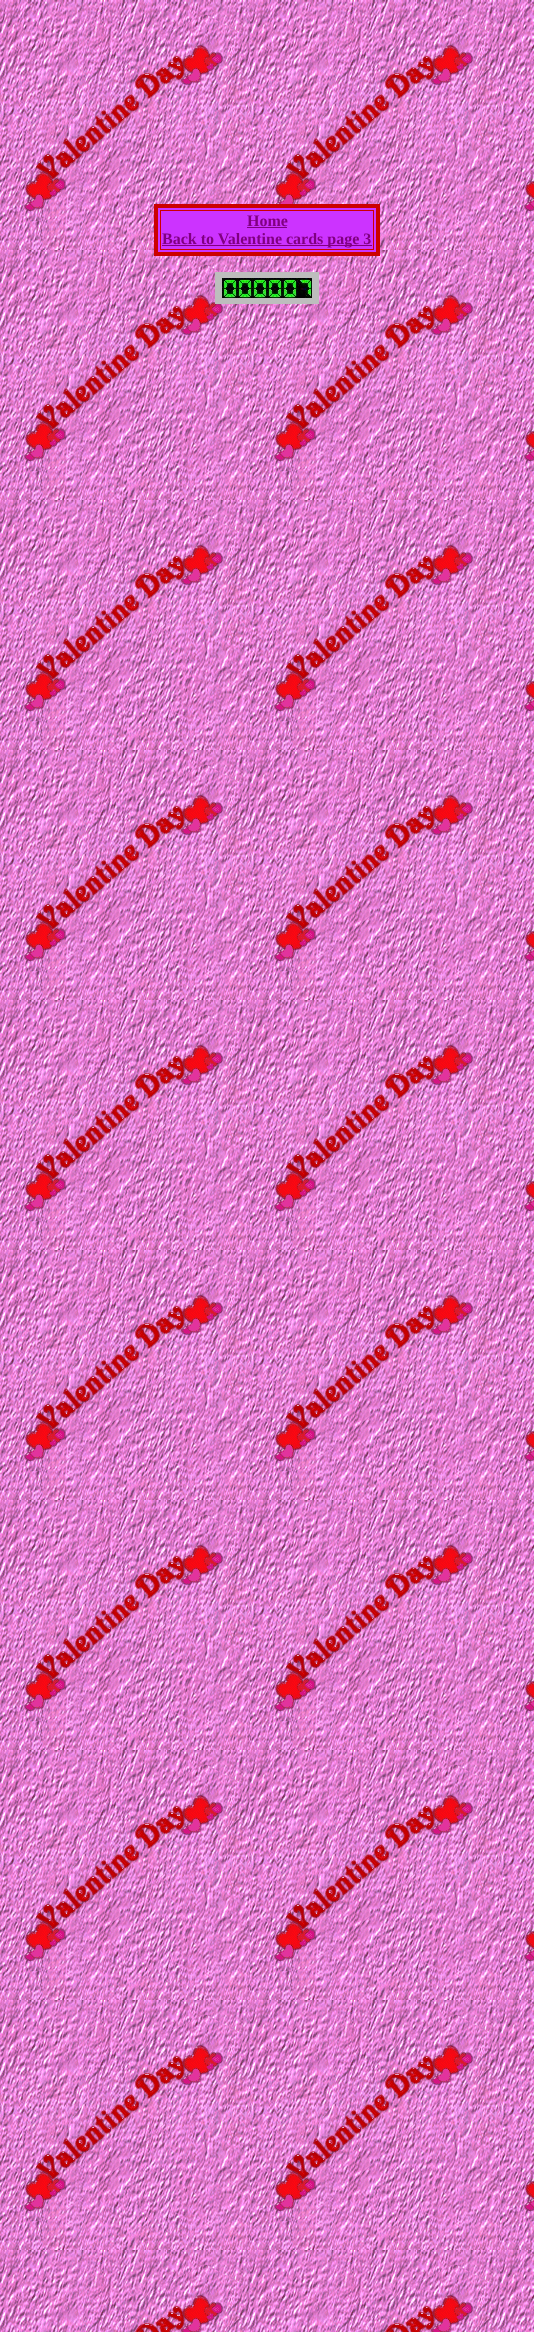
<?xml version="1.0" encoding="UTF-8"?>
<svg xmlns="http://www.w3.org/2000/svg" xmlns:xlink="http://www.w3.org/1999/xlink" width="534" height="2332">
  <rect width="100%" height="100%" fill="#ffffff" />
  <image x="0" y="0" width="534" height="2332" xlink:href="image1.png" />
  <rect x="156" y="206" width="222" height="48" fill="#cc33ff" stroke="#cc0000" stroke-width="4" />
  <rect x="160.5" y="210.5" width="213" height="39" fill="none" stroke="#cc0000" />
  <rect x="247" y="227" width="40" height="1" fill="#800080" />
  <rect x="162" y="245" width="210" height="1" fill="#800080" />
  <image x="215" y="272" width="104" height="32" xlink:href="image2.png" />
  <text x="247" y="226" style="font-family: Liberation Serif; font-size: 16px; font-weight: bold; fill: #800080">Home</text>
  <text x="162" y="244" style="font-family: Liberation Serif; font-size: 16px; font-weight: bold; fill: #800080">Back to Valentine cards page 3</text>
</svg>
